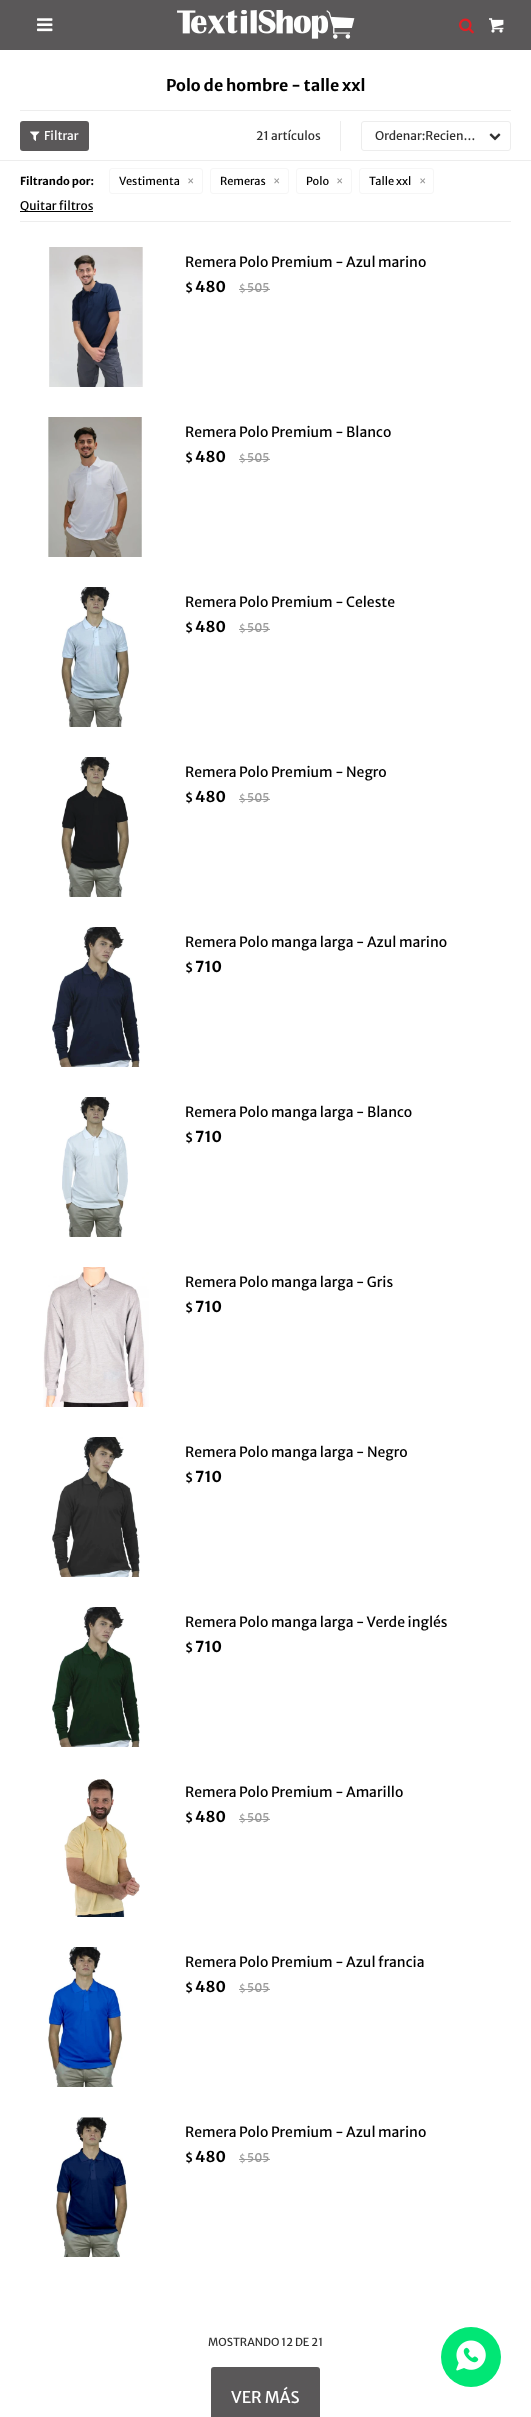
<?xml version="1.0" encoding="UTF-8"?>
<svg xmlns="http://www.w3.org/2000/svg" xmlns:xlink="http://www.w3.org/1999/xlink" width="531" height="2417">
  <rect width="100%" height="100%" fill="#ffffff" />
  <rect width="531" height="50" fill="#5a5859" />
  <image x="37" y="18" width="16" height="14" xlink:href="image1.png" />
  <image x="177" y="10" width="178" height="29" xlink:href="image2.png" />
  <image x="459" y="18" width="15" height="16" xlink:href="image3.png" />
  <image x="489" y="18" width="15" height="15" xlink:href="image4.png" />
  <rect x="20" y="110" width="491" height="1" fill="#ededed" />
  <rect x="20" y="121" width="69" height="30" rx="3" fill="#5a5859" />
  <image x="30" y="131" width="10" height="10" xlink:href="image5.png" />
  <rect x="340" y="121" width="1" height="30" fill="#ededed" />
  <image x="489" y="133" width="12" height="8" xlink:href="image6.png" />
  <rect x="361.5" y="121.5" width="149" height="29" rx="2.5" fill="none" stroke="#ededed" />
  <rect y="160" width="531" height="1" fill="#ededed" />
  <rect x="20" y="221" width="491" height="1" fill="#ededed" />
  <rect x="109.5" y="168.5" width="93" height="25" rx="2.5" fill="none" stroke="#f6f6f6" />
  <rect x="210.5" y="168.5" width="78" height="25" rx="2.5" fill="none" stroke="#f6f6f6" />
  <rect x="296.5" y="168.5" width="55" height="25" rx="2.5" fill="none" stroke="#f6f6f6" />
  <rect x="359.5" y="168.5" width="74" height="25" rx="2.5" fill="none" stroke="#f6f6f6" />
  <rect x="20" y="211" width="73" height="1" fill="#000000" />
  <image x="49" y="247" width="94" height="140" xlink:href="image7.png" />
  <rect x="239" y="289" width="31" height="1" fill="#999999" />
  <image x="48" y="417" width="94" height="140" xlink:href="image8.png" />
  <rect x="239" y="459" width="31" height="1" fill="#999999" />
  <image x="61" y="587" width="69" height="140" xlink:href="image9.png" />
  <rect x="239" y="629" width="31" height="1" fill="#999999" />
  <image x="61" y="757" width="68" height="140" xlink:href="image10.png" />
  <rect x="239" y="799" width="31" height="1" fill="#999999" />
  <image x="52" y="927" width="88" height="140" xlink:href="image11.png" />
  <image x="62" y="1097" width="66" height="140" xlink:href="image12.png" />
  <image x="43" y="1267" width="106" height="140" xlink:href="image13.png" />
  <image x="52" y="1437" width="88" height="140" xlink:href="image14.png" />
  <image x="52" y="1607" width="88" height="140" xlink:href="image15.png" />
  <image x="64" y="1779" width="76" height="138" xlink:href="image16.png" />
  <rect x="239" y="1819" width="31" height="1" fill="#999999" />
  <image x="48" y="1947" width="75" height="140" xlink:href="image17.png" />
  <rect x="239" y="1989" width="31" height="1" fill="#999999" />
  <image x="56" y="2117" width="72" height="140" xlink:href="image18.png" />
  <rect x="239" y="2159" width="31" height="1" fill="#999999" />
  <rect x="211" y="2367" width="109" height="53" rx="3" fill="#5a5859" />
  <circle cx="471" cy="2357" r="30" fill="#01e675" />
  <image x="456" y="2340" width="30" height="31" xlink:href="image19.png" />
  <text x="166" y="91" style="font-family: Merriweather Sans; font-size: 16px; font-weight: bold; fill: #000000">Polo de hombre - talle xxl</text>
  <text x="44" y="140" style="font-family: Merriweather Sans; font-size: 12px; fill: #ffffff">Filtrar</text>
  <text x="256" y="140" style="font-family: Merriweather Sans; font-size: 12px; fill: #313131">21 artículos</text>
  <text x="375" y="140" style="font-family: Merriweather Sans; font-size: 12px; fill: #313131">Ordenar:Recien…</text>
  <text x="20" y="185" style="font-family: Merriweather Sans; font-size: 11px; font-weight: bold; fill: #000000">Filtrando por:</text>
  <text x="119" y="185" style="font-family: Merriweather Sans; font-size: 11px; fill: #000000">Vestimenta</text>
  <text x="187" y="185" style="font-family: Merriweather Sans; font-size: 11px; fill: #999999">×</text>
  <text x="220" y="185" style="font-family: Merriweather Sans; font-size: 11px; fill: #000000">Remeras</text>
  <text x="273" y="185" style="font-family: Merriweather Sans; font-size: 11px; fill: #999999">×</text>
  <text x="306" y="185" style="font-family: Merriweather Sans; font-size: 11px; fill: #000000">Polo</text>
  <text x="336" y="185" style="font-family: Merriweather Sans; font-size: 11px; fill: #999999">×</text>
  <text x="369" y="185" style="font-family: Merriweather Sans; font-size: 11px; fill: #000000">Talle xxl</text>
  <text x="419" y="185" style="font-family: Merriweather Sans; font-size: 11px; fill: #999999">×</text>
  <text x="20" y="210" style="font-family: Merriweather Sans; font-size: 12px; fill: #000000">Quitar filtros</text>
  <text x="185" y="267" style="font-family: Merriweather Sans; font-size: 14px; fill: #000000">Remera Polo Premium - Azul marino</text>
  <text x="185" y="292" style="font-family: Merriweather Sans; font-size: 12px; font-weight: bold; fill: #000000">$</text>
  <text x="195" y="292" style="font-family: Merriweather Sans; font-size: 15px; font-weight: bold; fill: #000000">480</text>
  <text x="239" y="292" style="font-family: Merriweather Sans; font-size: 10px; fill: #999999">$</text>
  <text x="247" y="292" style="font-family: Merriweather Sans; font-size: 12px; fill: #999999">505</text>
  <text x="185" y="437" style="font-family: Merriweather Sans; font-size: 14px; fill: #000000">Remera Polo Premium - Blanco</text>
  <text x="185" y="462" style="font-family: Merriweather Sans; font-size: 12px; font-weight: bold; fill: #000000">$</text>
  <text x="195" y="462" style="font-family: Merriweather Sans; font-size: 15px; font-weight: bold; fill: #000000">480</text>
  <text x="239" y="462" style="font-family: Merriweather Sans; font-size: 10px; fill: #999999">$</text>
  <text x="247" y="462" style="font-family: Merriweather Sans; font-size: 12px; fill: #999999">505</text>
  <text x="185" y="607" style="font-family: Merriweather Sans; font-size: 14px; fill: #000000">Remera Polo Premium - Celeste</text>
  <text x="185" y="632" style="font-family: Merriweather Sans; font-size: 12px; font-weight: bold; fill: #000000">$</text>
  <text x="195" y="632" style="font-family: Merriweather Sans; font-size: 15px; font-weight: bold; fill: #000000">480</text>
  <text x="239" y="632" style="font-family: Merriweather Sans; font-size: 10px; fill: #999999">$</text>
  <text x="247" y="632" style="font-family: Merriweather Sans; font-size: 12px; fill: #999999">505</text>
  <text x="185" y="777" style="font-family: Merriweather Sans; font-size: 14px; fill: #000000">Remera Polo Premium - Negro</text>
  <text x="185" y="802" style="font-family: Merriweather Sans; font-size: 12px; font-weight: bold; fill: #000000">$</text>
  <text x="195" y="802" style="font-family: Merriweather Sans; font-size: 15px; font-weight: bold; fill: #000000">480</text>
  <text x="239" y="802" style="font-family: Merriweather Sans; font-size: 10px; fill: #999999">$</text>
  <text x="247" y="802" style="font-family: Merriweather Sans; font-size: 12px; fill: #999999">505</text>
  <text x="185" y="947" style="font-family: Merriweather Sans; font-size: 14px; fill: #000000">Remera Polo manga larga - Azul marino</text>
  <text x="185" y="972" style="font-family: Merriweather Sans; font-size: 12px; font-weight: bold; fill: #000000">$</text>
  <text x="195" y="972" style="font-family: Merriweather Sans; font-size: 15px; font-weight: bold; fill: #000000">710</text>
  <text x="185" y="1117" style="font-family: Merriweather Sans; font-size: 14px; fill: #000000">Remera Polo manga larga - Blanco</text>
  <text x="185" y="1142" style="font-family: Merriweather Sans; font-size: 12px; font-weight: bold; fill: #000000">$</text>
  <text x="195" y="1142" style="font-family: Merriweather Sans; font-size: 15px; font-weight: bold; fill: #000000">710</text>
  <text x="185" y="1287" style="font-family: Merriweather Sans; font-size: 14px; fill: #000000">Remera Polo manga larga - Gris</text>
  <text x="185" y="1312" style="font-family: Merriweather Sans; font-size: 12px; font-weight: bold; fill: #000000">$</text>
  <text x="195" y="1312" style="font-family: Merriweather Sans; font-size: 15px; font-weight: bold; fill: #000000">710</text>
  <text x="185" y="1457" style="font-family: Merriweather Sans; font-size: 14px; fill: #000000">Remera Polo manga larga - Negro</text>
  <text x="185" y="1482" style="font-family: Merriweather Sans; font-size: 12px; font-weight: bold; fill: #000000">$</text>
  <text x="195" y="1482" style="font-family: Merriweather Sans; font-size: 15px; font-weight: bold; fill: #000000">710</text>
  <text x="185" y="1627" style="font-family: Merriweather Sans; font-size: 14px; fill: #000000">Remera Polo manga larga - Verde inglés</text>
  <text x="185" y="1652" style="font-family: Merriweather Sans; font-size: 12px; font-weight: bold; fill: #000000">$</text>
  <text x="195" y="1652" style="font-family: Merriweather Sans; font-size: 15px; font-weight: bold; fill: #000000">710</text>
  <text x="185" y="1797" style="font-family: Merriweather Sans; font-size: 14px; fill: #000000">Remera Polo Premium - Amarillo</text>
  <text x="185" y="1822" style="font-family: Merriweather Sans; font-size: 12px; font-weight: bold; fill: #000000">$</text>
  <text x="195" y="1822" style="font-family: Merriweather Sans; font-size: 15px; font-weight: bold; fill: #000000">480</text>
  <text x="239" y="1822" style="font-family: Merriweather Sans; font-size: 10px; fill: #999999">$</text>
  <text x="247" y="1822" style="font-family: Merriweather Sans; font-size: 12px; fill: #999999">505</text>
  <text x="185" y="1967" style="font-family: Merriweather Sans; font-size: 14px; fill: #000000">Remera Polo Premium - Azul francia</text>
  <text x="185" y="1992" style="font-family: Merriweather Sans; font-size: 12px; font-weight: bold; fill: #000000">$</text>
  <text x="195" y="1992" style="font-family: Merriweather Sans; font-size: 15px; font-weight: bold; fill: #000000">480</text>
  <text x="239" y="1992" style="font-family: Merriweather Sans; font-size: 10px; fill: #999999">$</text>
  <text x="247" y="1992" style="font-family: Merriweather Sans; font-size: 12px; fill: #999999">505</text>
  <text x="185" y="2137" style="font-family: Merriweather Sans; font-size: 14px; fill: #000000">Remera Polo Premium - Azul marino</text>
  <text x="185" y="2162" style="font-family: Merriweather Sans; font-size: 12px; font-weight: bold; fill: #000000">$</text>
  <text x="195" y="2162" style="font-family: Merriweather Sans; font-size: 15px; font-weight: bold; fill: #000000">480</text>
  <text x="239" y="2162" style="font-family: Merriweather Sans; font-size: 10px; fill: #999999">$</text>
  <text x="247" y="2162" style="font-family: Merriweather Sans; font-size: 12px; fill: #999999">505</text>
  <text x="208" y="2346" style="font-family: Merriweather Sans; font-size: 11px; fill: #313131">MOSTRANDO 12 DE 21</text>
  <text x="231" y="2403" style="font-family: Merriweather Sans; font-size: 16px; fill: #ffffff">VER MÁS</text>
</svg>
